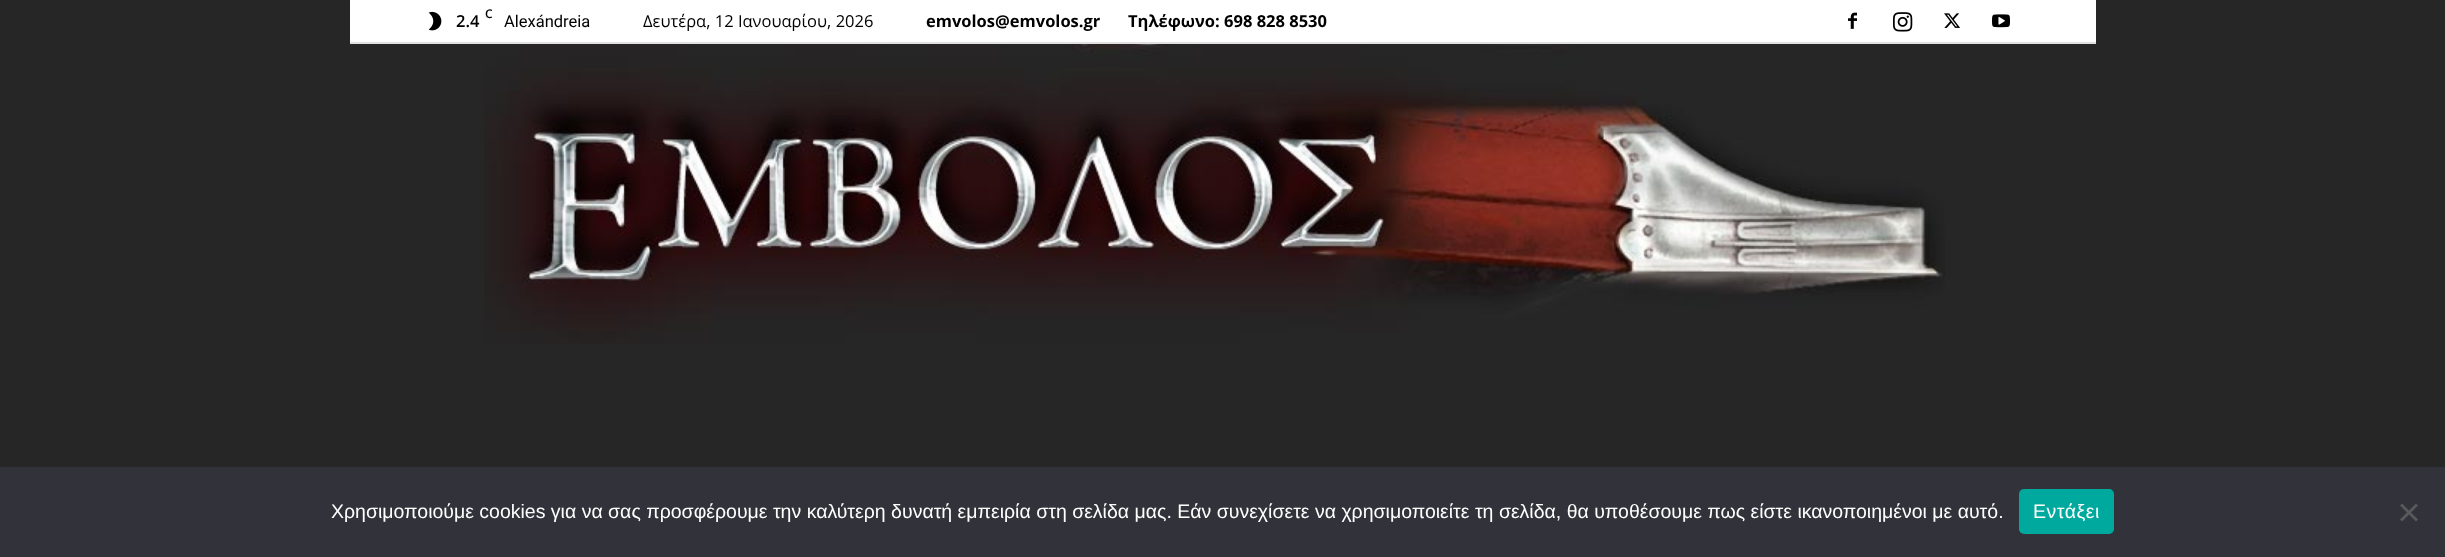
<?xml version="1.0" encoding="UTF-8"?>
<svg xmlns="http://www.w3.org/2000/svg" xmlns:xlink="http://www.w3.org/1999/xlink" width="2445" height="557">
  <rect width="100%" height="100%" fill="#262626" />
  <rect x="350" width="1746" height="42" fill="#ffffff" />
  <rect x="350" y="42" width="1746" height="2" fill="#e0e0e0" />
  <image x="428" y="11" width="14" height="20" xlink:href="image1.png" />
  <image x="1848" y="12" width="9" height="17" xlink:href="image2.png" />
  <image x="1893" y="12" width="20" height="20" xlink:href="image3.png" />
  <image x="1944" y="13" width="16" height="15" xlink:href="image4.png" />
  <image x="1992" y="14" width="18" height="14" xlink:href="image5.png" />
  <image x="484" y="44" width="1461" height="300" xlink:href="image6.png" />
  <rect y="467" width="2445" height="90" fill="#32323a" />
  <rect x="2019" y="489" width="95" height="45" rx="5" fill="#00a99d" />
  <path d="M 2416 503.5 l 2 2 l -16 16 l -2 -2 z" fill="#59595d" />
  <path d="M 2400 505.5 l 2 -2 l 16 16 l -2 2 z" fill="#59595d" />
  <text x="485" y="18" style="font-family: Open Sans; font-size: 12px; font-weight: 600; fill: #000000">C</text>
  <text x="456" y="27" style="font-family: Open Sans; font-size: 16.5px; font-weight: 600; fill: #000000">2.4</text>
  <text x="504" y="27" style="font-family: Roboto; font-size: 16.5px; fill: #000000">Alexándreia</text>
  <text x="643" y="27" style="font-family: Open Sans; font-size: 16.5px; fill: #000000">Δευτέρα, 12 Ιανουαρίου, 2026</text>
  <text x="926" y="27" style="font-family: Open Sans; font-size: 16.5px; font-weight: bold; fill: #000000">emvolos@emvolos.gr</text>
  <text x="1128" y="27" style="font-family: Open Sans; font-size: 16.5px; font-weight: bold; fill: #000000">Τηλέφωνο: 698 828 8530</text>
  <text x="331" y="518" style="font-family: Liberation Sans; font-size: 19.5px; fill: #ffffff">Χρησιμοποιούμε cookies για να σας προσφέρουμε την καλύτερη δυνατή εμπειρία στη σελίδα μας. Εάν συνεχίσετε να χρησιμοποιείτε τη σελίδα, θα υποθέσουμε πως είστε ικανοποιημένοι με αυτό.</text>
  <text x="2033" y="518" style="font-family: Liberation Sans; font-size: 19.5px; letter-spacing: 0.5px; fill: #ffffff">Εντάξει</text>
</svg>
